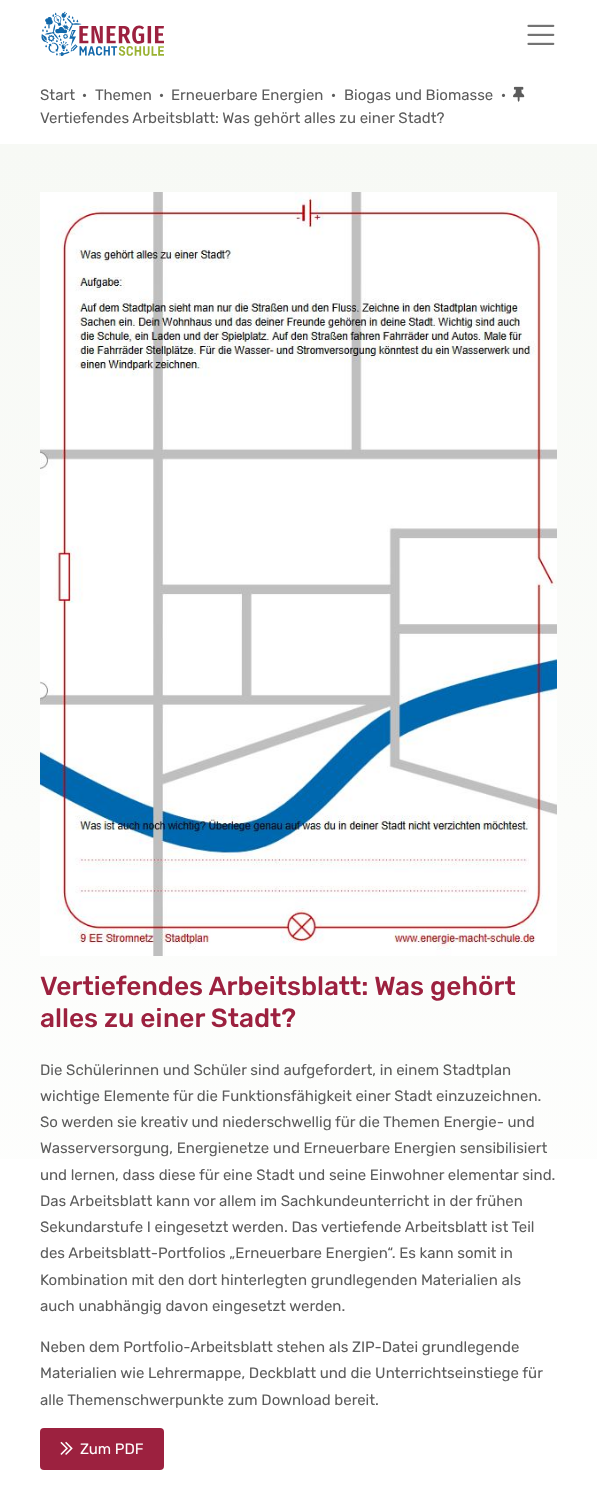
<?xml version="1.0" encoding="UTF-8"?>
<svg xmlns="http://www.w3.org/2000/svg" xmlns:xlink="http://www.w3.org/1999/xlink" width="597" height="1486">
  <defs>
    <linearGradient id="g1" gradientUnits="userSpaceOnUse" x1="298" y1="144" x2="299" y2="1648"><stop offset="0" stop-color="#f7f9f5" /><stop offset="0.9" stop-color="#ffffff" /></linearGradient>
  </defs>
  <rect width="100%" height="100%" fill="#ffffff" />
  <image x="41" y="11" width="123" height="45" xlink:href="image1.png" />
  <image x="527" y="24" width="28" height="21" xlink:href="image2.png" />
  <image x="513" y="86" width="12" height="16" xlink:href="image3.png" />
  <rect y="144" width="597" height="1015" fill="url(#g1)" />
  <image x="40" y="192" width="517" height="764" xlink:href="image4.png" />
  <rect x="40" y="1428" width="124" height="42" rx="4" fill="#9c213f" />
  <image x="60" y="1441" width="13" height="14" xlink:href="image5.png" />
  <text x="40" y="100" style="font-family: Rubik; font-size: 15px; font-weight: 300; fill: #5c5c5c">Start</text>
  <text x="82" y="100" style="font-family: Rubik; font-size: 15px; font-weight: 300; fill: #5c5c5c">·</text>
  <text x="95" y="100" style="font-family: Rubik; font-size: 15px; font-weight: 300; fill: #5c5c5c">Themen</text>
  <text x="159" y="100" style="font-family: Rubik; font-size: 15px; font-weight: 300; fill: #5c5c5c">·</text>
  <text x="171" y="100" style="font-family: Rubik; font-size: 15px; font-weight: 300; fill: #5c5c5c">Erneuerbare Energien</text>
  <text x="331" y="100" style="font-family: Rubik; font-size: 15px; font-weight: 300; fill: #5c5c5c">·</text>
  <text x="344" y="100" style="font-family: Rubik; font-size: 15px; font-weight: 300; fill: #5c5c5c">Biogas und Biomasse</text>
  <text x="501" y="100" style="font-family: Rubik; font-size: 15px; font-weight: 300; fill: #5c5c5c">·</text>
  <text x="40" y="123" style="font-family: Rubik; font-size: 15px; font-weight: 300; fill: #5c5c5c">Vertiefendes Arbeitsblatt: Was gehört alles zu einer Stadt?</text>
  <text x="40" y="995" style="font-family: 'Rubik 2'; font-size: 26.25px; font-weight: 300; fill: #9c213f">Vertiefendes Arbeitsblatt: Was gehört</text>
  <text x="40" y="1027" style="font-family: 'Rubik 2'; font-size: 26.25px; font-weight: 300; fill: #9c213f">alles zu einer Stadt?</text>
  <text x="40" y="1075" style="font-family: Rubik; font-size: 15px; font-weight: 300; fill: #5c5c5c">Die Schülerinnen und Schüler sind aufgefordert, in einem Stadtplan</text>
  <text x="40" y="1101" style="font-family: Rubik; font-size: 15px; font-weight: 300; fill: #5c5c5c">wichtige Elemente für die Funktionsfähigkeit einer Stadt einzuzeichnen.</text>
  <text x="40" y="1127" style="font-family: Rubik; font-size: 15px; font-weight: 300; fill: #5c5c5c">So werden sie kreativ und niederschwellig für die Themen Energie- und</text>
  <text x="40" y="1153" style="font-family: Rubik; font-size: 15px; font-weight: 300; fill: #5c5c5c">Wasserversorgung, Energienetze und Erneuerbare Energien sensibilisiert</text>
  <text x="40" y="1180" style="font-family: Rubik; font-size: 15px; font-weight: 300; fill: #5c5c5c">und lernen, dass diese für eine Stadt und seine Einwohner elementar sind.</text>
  <text x="40" y="1206" style="font-family: Rubik; font-size: 15px; font-weight: 300; fill: #5c5c5c">Das Arbeitsblatt kann vor allem im Sachkundeunterricht in der frühen</text>
  <text x="40" y="1232" style="font-family: Rubik; font-size: 15px; font-weight: 300; fill: #5c5c5c">Sekundarstufe I eingesetzt werden. Das vertiefende Arbeitsblatt ist Teil</text>
  <text x="40" y="1258" style="font-family: Rubik; font-size: 15px; font-weight: 300; fill: #5c5c5c">des Arbeitsblatt-Portfolios „Erneuerbare Energien“. Es kann somit in</text>
  <text x="40" y="1285" style="font-family: Rubik; font-size: 15px; font-weight: 300; fill: #5c5c5c">Kombination mit den dort hinterlegten grundlegenden Materialien als</text>
  <text x="40" y="1311" style="font-family: Rubik; font-size: 15px; font-weight: 300; fill: #5c5c5c">auch unabhängig davon eingesetzt werden.</text>
  <text x="40" y="1352" style="font-family: Rubik; font-size: 15px; font-weight: 300; fill: #5c5c5c">Neben dem Portfolio-Arbeitsblatt stehen als ZIP-Datei grundlegende</text>
  <text x="40" y="1378" style="font-family: Rubik; font-size: 15px; font-weight: 300; fill: #5c5c5c">Materialien wie Lehrermappe, Deckblatt und die Unterrichtseinstiege für</text>
  <text x="40" y="1405" style="font-family: Rubik; font-size: 15px; font-weight: 300; fill: #5c5c5c">alle Themenschwerpunkte zum Download bereit.</text>
  <text x="80" y="1454" style="font-family: Rubik; font-size: 15px; font-weight: 300; fill: #ffffff">Zum PDF</text>
</svg>
